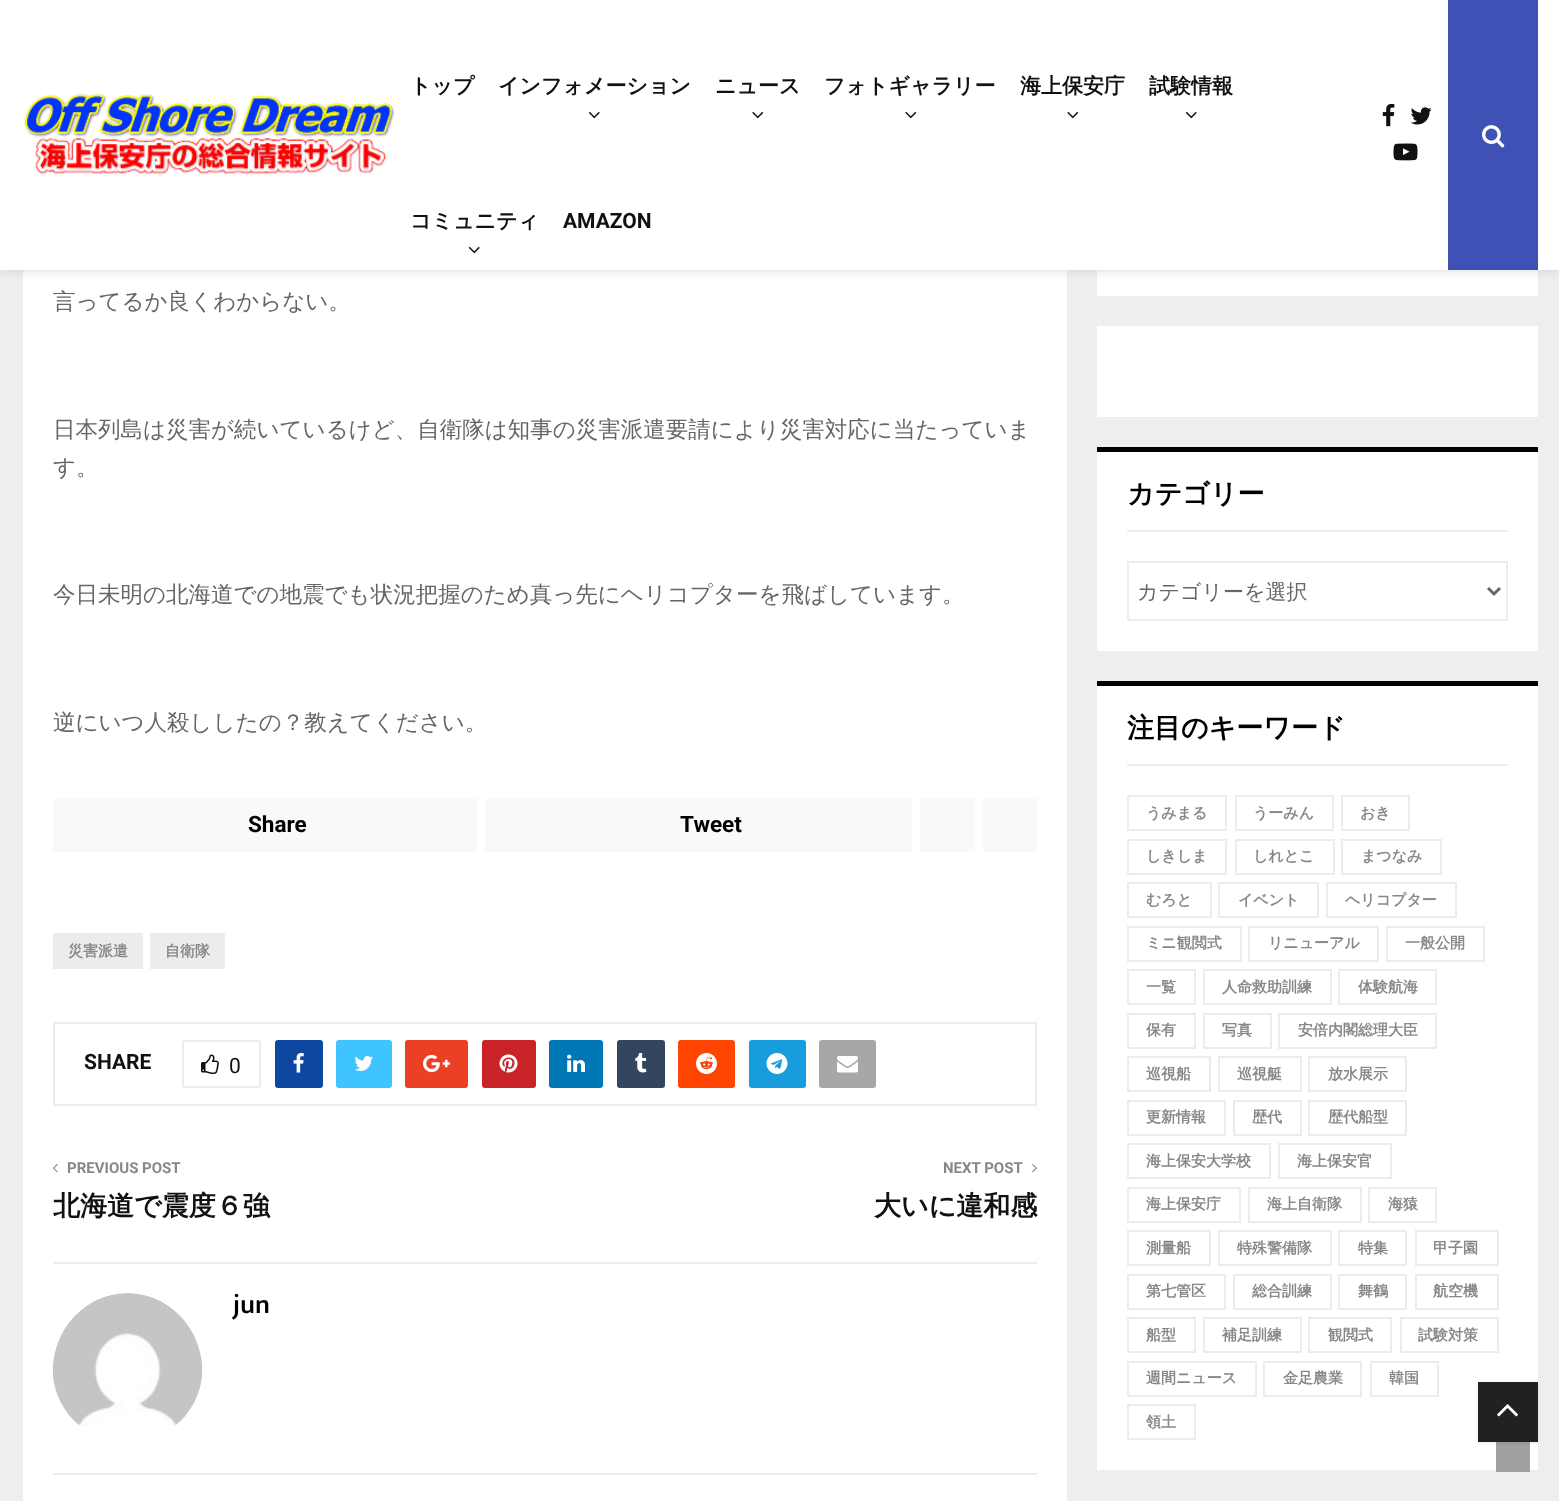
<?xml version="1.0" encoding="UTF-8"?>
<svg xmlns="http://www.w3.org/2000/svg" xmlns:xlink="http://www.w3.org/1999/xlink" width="1559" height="1501">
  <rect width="100%" height="100%" fill="#eeeeee" />
  <rect x="23" y="270" width="1044" height="1231" fill="#ffffff" />
  <rect x="1097" y="270" width="441" height="26" fill="#ffffff" />
  <rect y="2" width="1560" height="270" fill="#bebebe" fill-opacity="0.46" filter="blur(4px)" />
  <rect width="1559" height="270" fill="#ffffff" />
  <image x="24" y="93" width="371" height="82" xlink:href="image1.png" />
  <image x="588" y="111" width="12" height="8" xlink:href="image2.png" />
  <image x="752" y="111" width="12" height="8" xlink:href="image3.png" />
  <image x="905" y="111" width="12" height="8" xlink:href="image3.png" />
  <image x="1067" y="111" width="12" height="8" xlink:href="image3.png" />
  <image x="1185" y="111" width="12" height="8" xlink:href="image2.png" />
  <image x="468" y="246" width="12" height="8" xlink:href="image2.png" />
  <image x="1382" y="103" width="13" height="24" xlink:href="image4.png" />
  <image x="1410" y="107" width="22" height="18" xlink:href="image5.png" />
  <image x="1393" y="143" width="25" height="18" xlink:href="image6.png" />
  <rect x="1448" width="90" height="270" fill="#3f51b5" />
  <image x="1482" y="125" width="23" height="23" xlink:href="image7.png" />
  <rect x="53" y="798" width="424" height="54" fill="#f8f9fa" />
  <rect x="485" y="798" width="427" height="54" fill="#f8f9fa" />
  <rect x="920" y="798" width="55" height="54" fill="#f8f9fa" />
  <rect x="983" y="798" width="54" height="54" fill="#f8f9fa" />
  <rect x="53" y="933" width="90" height="36" fill="#ececec" />
  <rect x="150" y="933" width="75" height="36" fill="#ececec" />
  <rect x="54" y="1023" width="982" height="82" fill="none" stroke="#ececec" stroke-width="2" />
  <rect x="183" y="1041" width="77" height="46" rx="2" fill="none" stroke="#ececec" stroke-width="2" />
  <image x="201" y="1054" width="18" height="20" xlink:href="image8.png" />
  <rect x="275" y="1040" width="48" height="48" rx="3" fill="#0d47a1" />
  <image x="293" y="1053" width="11" height="20" xlink:href="image9.png" />
  <rect x="336" y="1040" width="56" height="48" rx="3" fill="#40c4ff" />
  <image x="354" y="1056" width="19" height="15" xlink:href="image10.png" />
  <rect x="405" y="1040" width="63" height="48" rx="3" fill="#eb4026" />
  <image x="423" y="1054" width="27" height="19" xlink:href="image11.png" />
  <rect x="482" y="1040" width="54" height="48" rx="3" fill="#c92228" />
  <image x="499" y="1054" width="19" height="19" xlink:href="image12.png" />
  <rect x="549" y="1040" width="54" height="48" rx="3" fill="#0077b5" />
  <image x="567" y="1054" width="18" height="18" xlink:href="image13.png" />
  <rect x="617" y="1040" width="48" height="48" rx="3" fill="#34465d" />
  <image x="635" y="1053" width="12" height="20" xlink:href="image14.png" />
  <rect x="678" y="1040" width="57" height="48" rx="3" fill="#ff4500" />
  <image x="696" y="1053" width="21" height="21" xlink:href="image15.png" />
  <rect x="749" y="1040" width="57" height="48" rx="3" fill="#179cde" />
  <image x="766" y="1053" width="22" height="21" xlink:href="image16.png" />
  <rect x="819" y="1040" width="57" height="48" rx="3" fill="#a7a7a7" />
  <image x="837" y="1056" width="21" height="17" xlink:href="image17.png" />
  <rect x="53" y="1262" width="984" height="2" fill="#ececec" />
  <image x="53" y="1164" width="5" height="9" xlink:href="image18.png" />
  <image x="1032" y="1164" width="5" height="9" xlink:href="image19.png" />
  <rect x="53" y="1473" width="984" height="2" fill="#ececec" />
  <image x="52" y="1293" width="151" height="133" xlink:href="image20.png" />
  <rect x="1097" y="326" width="441" height="91" fill="#ffffff" />
  <rect x="1097" y="452" width="441" height="199" fill="#ffffff" />
  <rect x="1127" y="530" width="381" height="2" fill="#ececec" />
  <rect x="1097" y="447" width="441" height="5" fill="#000000" />
  <rect x="1128" y="562" width="379" height="58" fill="none" stroke="#ececec" stroke-width="2" />
  <path d="M 1488 588 l 6 6 l 6 -6" fill="none" stroke="#666666" stroke-width="3" />
  <rect x="1097" y="686" width="441" height="784" fill="#ffffff" />
  <rect x="1127" y="764" width="381" height="2" fill="#ececec" />
  <rect x="1097" y="681" width="441" height="5" fill="#000000" />
  <rect x="1128" y="796" width="98" height="34" fill="none" stroke="#ececec" stroke-width="2" />
  <rect x="1236" y="796" width="97" height="34" fill="none" stroke="#ececec" stroke-width="2" />
  <rect x="1342" y="796" width="67" height="34" fill="none" stroke="#ececec" stroke-width="2" />
  <rect x="1128" y="840" width="98" height="34" fill="none" stroke="#ececec" stroke-width="2" />
  <rect x="1236" y="840" width="98" height="34" fill="none" stroke="#ececec" stroke-width="2" />
  <rect x="1342" y="840" width="99" height="34" fill="none" stroke="#ececec" stroke-width="2" />
  <rect x="1128" y="883" width="83" height="34" fill="none" stroke="#ececec" stroke-width="2" />
  <rect x="1219" y="883" width="99" height="34" fill="none" stroke="#ececec" stroke-width="2" />
  <rect x="1327" y="883" width="129" height="34" fill="none" stroke="#ececec" stroke-width="2" />
  <rect x="1128" y="927" width="113" height="34" fill="none" stroke="#ececec" stroke-width="2" />
  <rect x="1249" y="927" width="129" height="34" fill="none" stroke="#ececec" stroke-width="2" />
  <rect x="1387" y="927" width="97" height="34" fill="none" stroke="#ececec" stroke-width="2" />
  <rect x="1128" y="970" width="67" height="34" fill="none" stroke="#ececec" stroke-width="2" />
  <rect x="1204" y="970" width="127" height="34" fill="none" stroke="#ececec" stroke-width="2" />
  <rect x="1339" y="970" width="97" height="34" fill="none" stroke="#ececec" stroke-width="2" />
  <rect x="1128" y="1014" width="67" height="34" fill="none" stroke="#ececec" stroke-width="2" />
  <rect x="1204" y="1014" width="67" height="34" fill="none" stroke="#ececec" stroke-width="2" />
  <rect x="1279" y="1014" width="157" height="34" fill="none" stroke="#ececec" stroke-width="2" />
  <rect x="1128" y="1057" width="82" height="34" fill="none" stroke="#ececec" stroke-width="2" />
  <rect x="1219" y="1057" width="82" height="34" fill="none" stroke="#ececec" stroke-width="2" />
  <rect x="1309" y="1057" width="97" height="34" fill="none" stroke="#ececec" stroke-width="2" />
  <rect x="1128" y="1101" width="97" height="34" fill="none" stroke="#ececec" stroke-width="2" />
  <rect x="1234" y="1101" width="67" height="34" fill="none" stroke="#ececec" stroke-width="2" />
  <rect x="1309" y="1101" width="97" height="34" fill="none" stroke="#ececec" stroke-width="2" />
  <rect x="1128" y="1144" width="142" height="34" fill="none" stroke="#ececec" stroke-width="2" />
  <rect x="1279" y="1144" width="112" height="34" fill="none" stroke="#ececec" stroke-width="2" />
  <rect x="1128" y="1188" width="112" height="34" fill="none" stroke="#ececec" stroke-width="2" />
  <rect x="1249" y="1188" width="112" height="34" fill="none" stroke="#ececec" stroke-width="2" />
  <rect x="1369" y="1188" width="67" height="34" fill="none" stroke="#ececec" stroke-width="2" />
  <rect x="1128" y="1231" width="82" height="34" fill="none" stroke="#ececec" stroke-width="2" />
  <rect x="1219" y="1231" width="112" height="34" fill="none" stroke="#ececec" stroke-width="2" />
  <rect x="1339" y="1231" width="67" height="34" fill="none" stroke="#ececec" stroke-width="2" />
  <rect x="1416" y="1231" width="82" height="34" fill="none" stroke="#ececec" stroke-width="2" />
  <rect x="1128" y="1275" width="97" height="34" fill="none" stroke="#ececec" stroke-width="2" />
  <rect x="1234" y="1275" width="97" height="34" fill="none" stroke="#ececec" stroke-width="2" />
  <rect x="1339" y="1275" width="67" height="34" fill="none" stroke="#ececec" stroke-width="2" />
  <rect x="1416" y="1275" width="82" height="34" fill="none" stroke="#ececec" stroke-width="2" />
  <rect x="1128" y="1318" width="67" height="34" fill="none" stroke="#ececec" stroke-width="2" />
  <rect x="1204" y="1318" width="97" height="34" fill="none" stroke="#ececec" stroke-width="2" />
  <rect x="1309" y="1318" width="82" height="34" fill="none" stroke="#ececec" stroke-width="2" />
  <rect x="1401" y="1318" width="97" height="34" fill="none" stroke="#ececec" stroke-width="2" />
  <rect x="1128" y="1362" width="128" height="34" fill="none" stroke="#ececec" stroke-width="2" />
  <rect x="1264" y="1362" width="97" height="34" fill="none" stroke="#ececec" stroke-width="2" />
  <rect x="1371" y="1362" width="67" height="34" fill="none" stroke="#ececec" stroke-width="2" />
  <rect x="1128" y="1405" width="67" height="34" fill="none" stroke="#ececec" stroke-width="2" />
  <rect x="1496" y="1442" width="34" height="30" fill="#a0a0a0" />
  <rect x="1478" y="1383" width="60" height="60" fill="#000000" fill-opacity="0.1" filter="blur(1.5px)" />
  <rect x="1478" y="1382" width="60" height="60" fill="#212121" />
  <image x="1497" y="1404" width="21" height="13" xlink:href="image21.png" />
  <text x="410" y="93" style="font-family: WenQuanYi Zen Hei; font-size: 21px; font-weight: bold; fill: #111111">トップ</text>
  <text x="498" y="93" style="font-family: WenQuanYi Zen Hei; font-size: 21px; font-weight: bold; fill: #111111">インフォメーション</text>
  <text x="715" y="93" style="font-family: WenQuanYi Zen Hei; font-size: 21px; font-weight: bold; fill: #111111">ニュース</text>
  <text x="824" y="93" style="font-family: WenQuanYi Zen Hei; font-size: 21px; font-weight: bold; fill: #111111">フォトギャラリー</text>
  <text x="1020" y="93" style="font-family: WenQuanYi Zen Hei; font-size: 21px; font-weight: bold; fill: #111111">海上保安庁</text>
  <text x="1149" y="93" style="font-family: WenQuanYi Zen Hei; font-size: 21px; font-weight: bold; fill: #111111">試験情報</text>
  <text x="410" y="228" style="font-family: WenQuanYi Zen Hei; font-size: 21px; font-weight: bold; fill: #111111">コミュニティ</text>
  <text x="563" y="228" style="font-family: Roboto; font-size: 21px; font-weight: bold; fill: #111111">AMAZON</text>
  <text x="53" y="309" style="font-family: WenQuanYi Zen Hei; font-size: 22.5px; font-weight: 500; fill: #666666">言ってるか良くわからない。</text>
  <text x="53" y="437" style="font-family: WenQuanYi Zen Hei; font-size: 22.5px; font-weight: 500; fill: #666666">日本列島は災害が続いているけど、自衛隊は知事の災害派遣要請により災害対応に当たっていま</text>
  <text x="53" y="475" style="font-family: WenQuanYi Zen Hei; font-size: 22.5px; font-weight: 500; fill: #666666">す。</text>
  <text x="53" y="602" style="font-family: WenQuanYi Zen Hei; font-size: 22.5px; font-weight: 500; fill: #666666">今日未明の北海道での地震でも状況把握のため真っ先にヘリコプターを飛ばしています。</text>
  <text x="53" y="730" style="font-family: WenQuanYi Zen Hei; font-size: 22.5px; font-weight: 500; fill: #666666">逆にいつ人殺ししたの？教えてください。</text>
  <text x="248" y="832" style="font-family: Roboto; font-size: 22.5px; font-weight: bold; fill: #000000">Share</text>
  <text x="680" y="832" style="font-family: Roboto; font-size: 22.5px; font-weight: bold; fill: #000000">Tweet</text>
  <text x="68" y="956" style="font-family: WenQuanYi Zen Hei; font-size: 15px; font-weight: bold; fill: #888888">災害派遣</text>
  <text x="165" y="956" style="font-family: WenQuanYi Zen Hei; font-size: 15px; font-weight: bold; fill: #888888">自衛隊</text>
  <text x="84" y="1069" style="font-family: Roboto; font-size: 21px; font-weight: bold; fill: #111111">SHARE</text>
  <text x="229" y="1073" style="font-family: Roboto; font-size: 21px; fill: #111111">0</text>
  <text x="67" y="1173" style="font-family: Roboto; font-size: 15px; font-weight: bold; fill: #888888">PREVIOUS POST</text>
  <text x="53" y="1215" style="font-family: WenQuanYi Zen Hei; font-size: 27px; font-weight: bold; fill: #111111">北海道で震度６強</text>
  <text x="943" y="1173" style="font-family: Roboto; font-size: 15px; font-weight: bold; fill: #888888">NEXT POST</text>
  <text x="874" y="1215" style="font-family: WenQuanYi Zen Hei; font-size: 27px; font-weight: bold; fill: #111111">大いに違和感</text>
  <text x="233" y="1313" style="font-family: Mukta Vaani; font-size: 27px; font-weight: 600; fill: #000000">jun</text>
  <text x="1127" y="503" style="font-family: WenQuanYi Zen Hei; font-size: 27px; font-weight: bold; fill: #000000">カテゴリー</text>
  <text x="1137" y="599" style="font-family: WenQuanYi Zen Hei; font-size: 21px; font-weight: 500; fill: #666666">カテゴリーを選択</text>
  <text x="1127" y="737" style="font-family: WenQuanYi Zen Hei; font-size: 27px; font-weight: bold; fill: #000000">注目のキーワード</text>
  <text x="1146" y="818" style="font-family: WenQuanYi Zen Hei; font-size: 15px; font-weight: bold; fill: #888888">うみまる</text>
  <text x="1253" y="818" style="font-family: WenQuanYi Zen Hei; font-size: 15px; font-weight: bold; fill: #888888">うーみん</text>
  <text x="1360" y="818" style="font-family: WenQuanYi Zen Hei; font-size: 15px; font-weight: bold; fill: #888888">おき</text>
  <text x="1146" y="861" style="font-family: WenQuanYi Zen Hei; font-size: 15px; font-weight: bold; fill: #888888">しきしま</text>
  <text x="1253" y="861" style="font-family: WenQuanYi Zen Hei; font-size: 15px; font-weight: bold; fill: #888888">しれとこ</text>
  <text x="1361" y="861" style="font-family: WenQuanYi Zen Hei; font-size: 15px; font-weight: bold; fill: #888888">まつなみ</text>
  <text x="1146" y="905" style="font-family: WenQuanYi Zen Hei; font-size: 15px; font-weight: bold; fill: #888888">むろと</text>
  <text x="1238" y="905" style="font-family: WenQuanYi Zen Hei; font-size: 15px; font-weight: bold; fill: #888888">イベント</text>
  <text x="1345" y="905" style="font-family: WenQuanYi Zen Hei; font-size: 15px; font-weight: bold; fill: #888888">ヘリコプター</text>
  <text x="1146" y="948" style="font-family: WenQuanYi Zen Hei; font-size: 15px; font-weight: bold; fill: #888888">ミニ観閲式</text>
  <text x="1268" y="948" style="font-family: WenQuanYi Zen Hei; font-size: 15px; font-weight: bold; fill: #888888">リニューアル</text>
  <text x="1405" y="948" style="font-family: WenQuanYi Zen Hei; font-size: 15px; font-weight: bold; fill: #888888">一般公開</text>
  <text x="1146" y="992" style="font-family: WenQuanYi Zen Hei; font-size: 15px; font-weight: bold; fill: #888888">一覧</text>
  <text x="1222" y="992" style="font-family: WenQuanYi Zen Hei; font-size: 15px; font-weight: bold; fill: #888888">人命救助訓練</text>
  <text x="1358" y="992" style="font-family: WenQuanYi Zen Hei; font-size: 15px; font-weight: bold; fill: #888888">体験航海</text>
  <text x="1146" y="1035" style="font-family: WenQuanYi Zen Hei; font-size: 15px; font-weight: bold; fill: #888888">保有</text>
  <text x="1222" y="1035" style="font-family: WenQuanYi Zen Hei; font-size: 15px; font-weight: bold; fill: #888888">写真</text>
  <text x="1298" y="1035" style="font-family: WenQuanYi Zen Hei; font-size: 15px; font-weight: bold; fill: #888888">安倍内閣総理大臣</text>
  <text x="1146" y="1079" style="font-family: WenQuanYi Zen Hei; font-size: 15px; font-weight: bold; fill: #888888">巡視船</text>
  <text x="1237" y="1079" style="font-family: WenQuanYi Zen Hei; font-size: 15px; font-weight: bold; fill: #888888">巡視艇</text>
  <text x="1328" y="1079" style="font-family: WenQuanYi Zen Hei; font-size: 15px; font-weight: bold; fill: #888888">放水展示</text>
  <text x="1146" y="1122" style="font-family: WenQuanYi Zen Hei; font-size: 15px; font-weight: bold; fill: #888888">更新情報</text>
  <text x="1252" y="1122" style="font-family: WenQuanYi Zen Hei; font-size: 15px; font-weight: bold; fill: #888888">歴代</text>
  <text x="1328" y="1122" style="font-family: WenQuanYi Zen Hei; font-size: 15px; font-weight: bold; fill: #888888">歴代船型</text>
  <text x="1146" y="1166" style="font-family: WenQuanYi Zen Hei; font-size: 15px; font-weight: bold; fill: #888888">海上保安大学校</text>
  <text x="1297" y="1166" style="font-family: WenQuanYi Zen Hei; font-size: 15px; font-weight: bold; fill: #888888">海上保安官</text>
  <text x="1146" y="1209" style="font-family: WenQuanYi Zen Hei; font-size: 15px; font-weight: bold; fill: #888888">海上保安庁</text>
  <text x="1267" y="1209" style="font-family: WenQuanYi Zen Hei; font-size: 15px; font-weight: bold; fill: #888888">海上自衛隊</text>
  <text x="1388" y="1209" style="font-family: WenQuanYi Zen Hei; font-size: 15px; font-weight: bold; fill: #888888">海猿</text>
  <text x="1146" y="1253" style="font-family: WenQuanYi Zen Hei; font-size: 15px; font-weight: bold; fill: #888888">測量船</text>
  <text x="1237" y="1253" style="font-family: WenQuanYi Zen Hei; font-size: 15px; font-weight: bold; fill: #888888">特殊警備隊</text>
  <text x="1358" y="1253" style="font-family: WenQuanYi Zen Hei; font-size: 15px; font-weight: bold; fill: #888888">特集</text>
  <text x="1433" y="1253" style="font-family: WenQuanYi Zen Hei; font-size: 15px; font-weight: bold; fill: #888888">甲子園</text>
  <text x="1146" y="1296" style="font-family: WenQuanYi Zen Hei; font-size: 15px; font-weight: bold; fill: #888888">第七管区</text>
  <text x="1252" y="1296" style="font-family: WenQuanYi Zen Hei; font-size: 15px; font-weight: bold; fill: #888888">総合訓練</text>
  <text x="1358" y="1296" style="font-family: WenQuanYi Zen Hei; font-size: 15px; font-weight: bold; fill: #888888">舞鶴</text>
  <text x="1433" y="1296" style="font-family: WenQuanYi Zen Hei; font-size: 15px; font-weight: bold; fill: #888888">航空機</text>
  <text x="1146" y="1340" style="font-family: WenQuanYi Zen Hei; font-size: 15px; font-weight: bold; fill: #888888">船型</text>
  <text x="1222" y="1340" style="font-family: WenQuanYi Zen Hei; font-size: 15px; font-weight: bold; fill: #888888">補足訓練</text>
  <text x="1328" y="1340" style="font-family: WenQuanYi Zen Hei; font-size: 15px; font-weight: bold; fill: #888888">観閲式</text>
  <text x="1418" y="1340" style="font-family: WenQuanYi Zen Hei; font-size: 15px; font-weight: bold; fill: #888888">試験対策</text>
  <text x="1146" y="1383" style="font-family: WenQuanYi Zen Hei; font-size: 15px; font-weight: bold; fill: #888888">週間ニュース</text>
  <text x="1283" y="1383" style="font-family: WenQuanYi Zen Hei; font-size: 15px; font-weight: bold; fill: #888888">金足農業</text>
  <text x="1389" y="1383" style="font-family: WenQuanYi Zen Hei; font-size: 15px; font-weight: bold; fill: #888888">韓国</text>
  <text x="1146" y="1427" style="font-family: WenQuanYi Zen Hei; font-size: 15px; font-weight: bold; fill: #888888">領土</text>
</svg>
